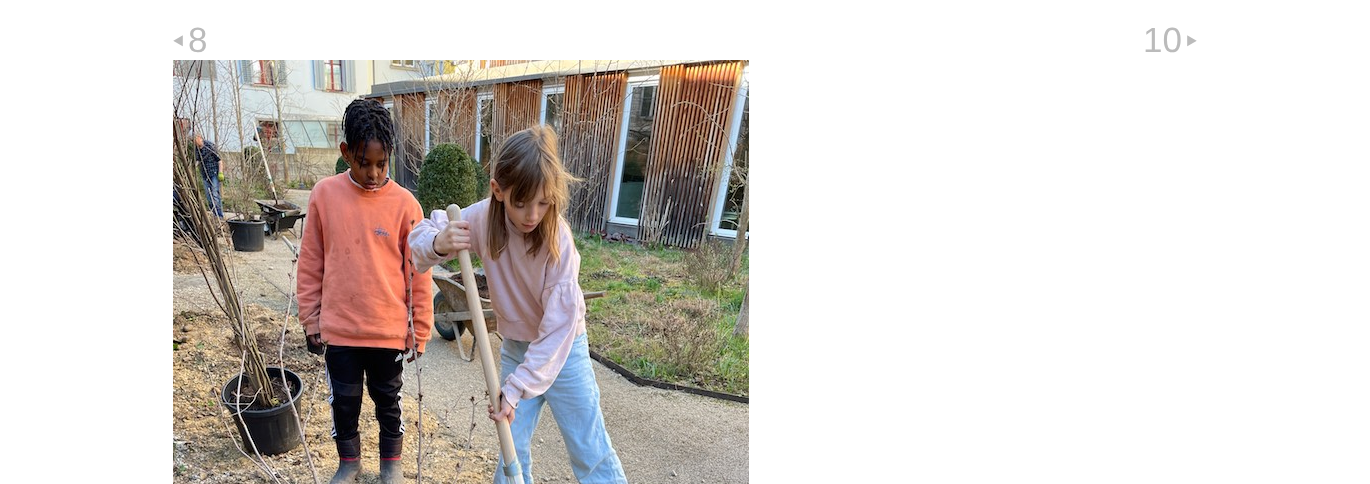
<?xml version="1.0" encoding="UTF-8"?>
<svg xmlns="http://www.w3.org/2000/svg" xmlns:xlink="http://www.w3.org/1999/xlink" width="1370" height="484">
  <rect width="100%" height="100%" fill="#ffffff" />
  <image x="173" y="35" width="10" height="12" xlink:href="image1.png" />
  <image x="1187" y="35" width="10" height="12" xlink:href="image2.png" />
  <image x="173" y="60" width="576" height="424" xlink:href="image3.png" />
  <text x="188" y="52" style="font-family: Liberation Sans; font-size: 35px; fill: #bbbbbb">8</text>
  <text x="1143" y="52" style="font-family: Liberation Sans; font-size: 35px; fill: #bbbbbb">10</text>
</svg>
